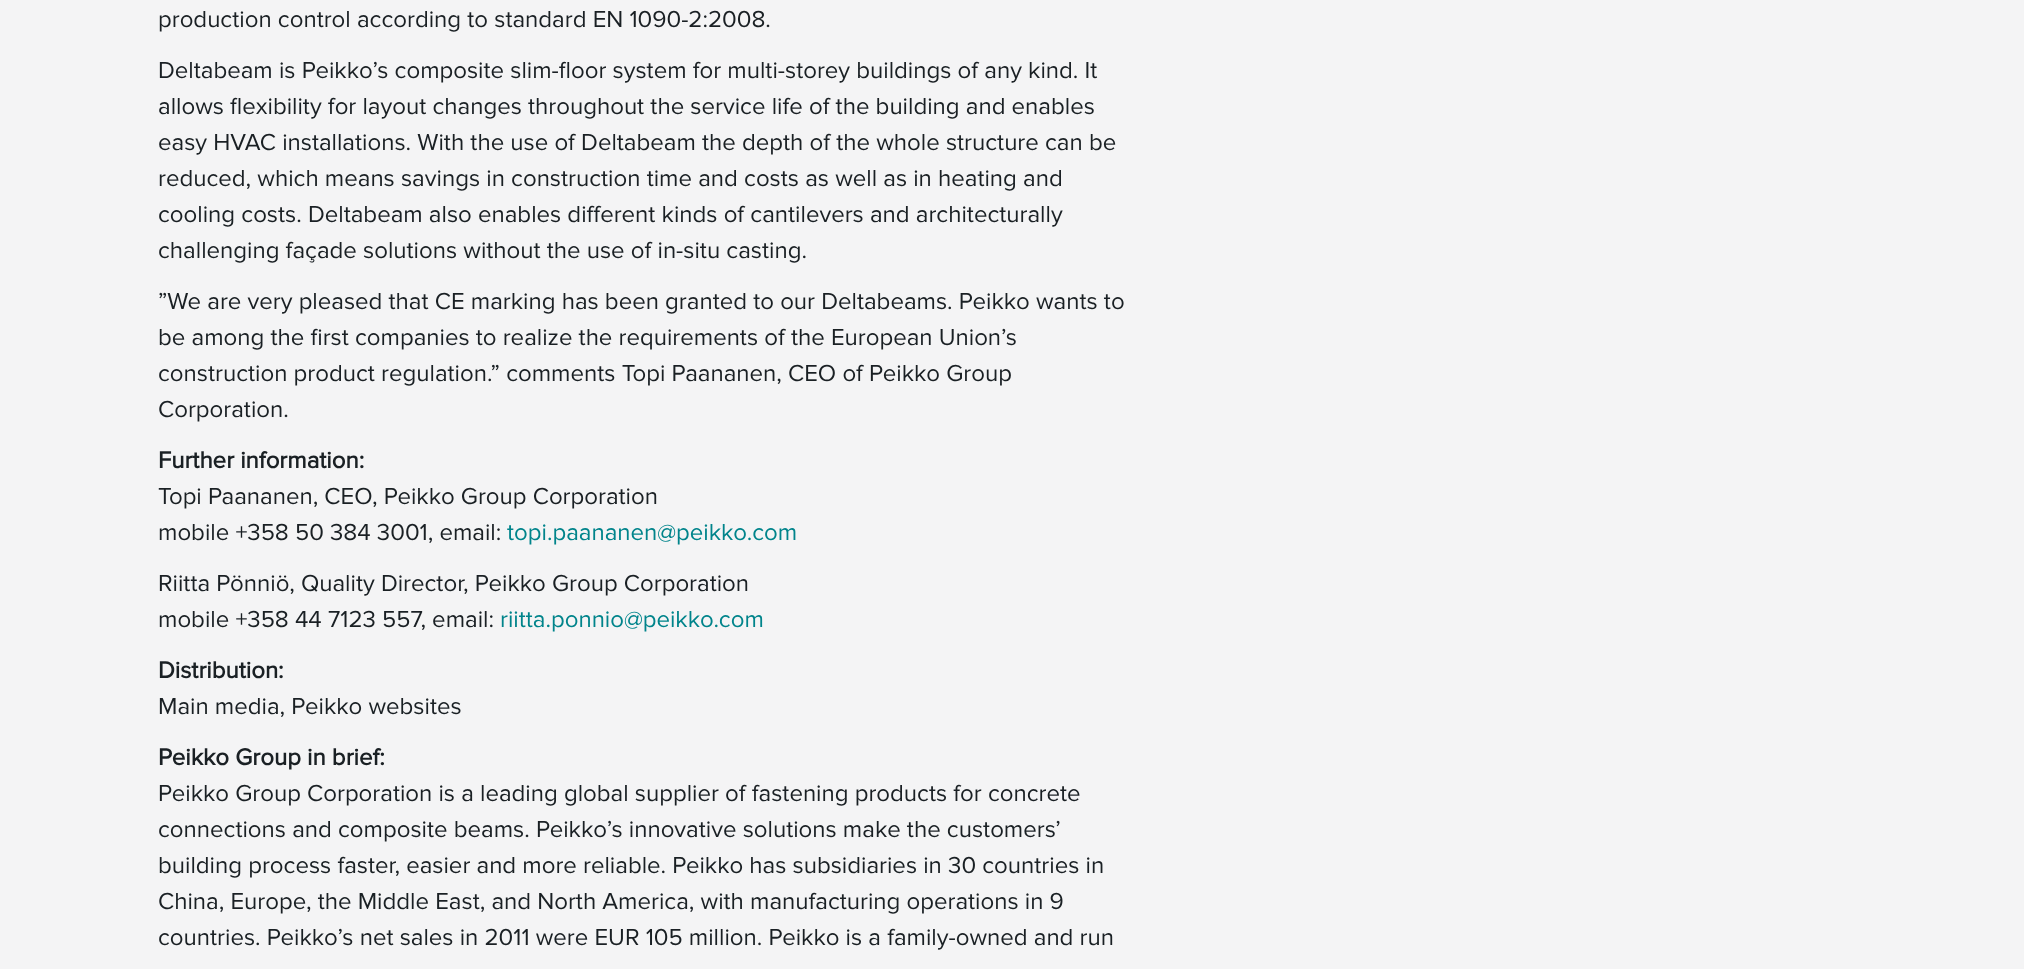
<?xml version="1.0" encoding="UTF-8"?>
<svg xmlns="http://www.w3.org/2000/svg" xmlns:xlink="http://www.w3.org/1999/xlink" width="2024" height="969">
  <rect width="100%" height="100%" fill="#f4f4f5" />
  <text x="158" y="27" style="font-family: Proxima Nova; font-size: 24px; fill: #1a2024">production control according to standard EN 1090-2:2008.</text>
  <text x="158" y="78" style="font-family: Proxima Nova; font-size: 24px; fill: #1a2024">Deltabeam is Peikko’s composite slim-floor system for multi-storey buildings of any kind. It</text>
  <text x="158" y="114" style="font-family: Proxima Nova; font-size: 24px; fill: #1a2024">allows flexibility for layout changes throughout the service life of the building and enables</text>
  <text x="158" y="150" style="font-family: Proxima Nova; font-size: 24px; fill: #1a2024">easy HVAC installations. With the use of Deltabeam the depth of the whole structure can be</text>
  <text x="158" y="186" style="font-family: Proxima Nova; font-size: 24px; fill: #1a2024">reduced, which means savings in construction time and costs as well as in heating and</text>
  <text x="158" y="222" style="font-family: Proxima Nova; font-size: 24px; fill: #1a2024">cooling costs. Deltabeam also enables different kinds of cantilevers and architecturally</text>
  <text x="158" y="258" style="font-family: Proxima Nova; font-size: 24px; fill: #1a2024">challenging façade solutions without the use of in-situ casting.</text>
  <text x="158" y="309" style="font-family: Proxima Nova; font-size: 24px; fill: #1a2024">”We are very pleased that CE marking has been granted to our Deltabeams. Peikko wants to</text>
  <text x="158" y="345" style="font-family: Proxima Nova; font-size: 24px; fill: #1a2024">be among the first companies to realize the requirements of the European Union’s</text>
  <text x="158" y="381" style="font-family: Proxima Nova; font-size: 24px; fill: #1a2024">construction product regulation.” comments Topi Paananen, CEO of Peikko Group</text>
  <text x="158" y="417" style="font-family: Proxima Nova; font-size: 24px; fill: #1a2024">Corporation.</text>
  <text x="158" y="468" style="font-family: Proxima Nova; font-size: 24px; font-weight: bold; fill: #1a2024">Further information:</text>
  <text x="158" y="504" style="font-family: Proxima Nova; font-size: 24px; fill: #1a2024">Topi Paananen, CEO, Peikko Group Corporation</text>
  <text x="158" y="540" style="font-family: Proxima Nova; font-size: 24px; fill: #1a2024">mobile +358 50 384 3001, email:</text>
  <text x="507" y="540" style="font-family: Proxima Nova; font-size: 24px; fill: #00848b">topi.paananen@peikko.com</text>
  <text x="158" y="591" style="font-family: Proxima Nova; font-size: 24px; fill: #1a2024">Riitta Pönniö, Quality Director, Peikko Group Corporation</text>
  <text x="158" y="627" style="font-family: Proxima Nova; font-size: 24px; fill: #1a2024">mobile +358 44 7123 557, email:</text>
  <text x="500" y="627" style="font-family: Proxima Nova; font-size: 24px; fill: #00848b">riitta.ponnio@peikko.com</text>
  <text x="158" y="678" style="font-family: Proxima Nova; font-size: 24px; font-weight: bold; fill: #1a2024">Distribution:</text>
  <text x="158" y="714" style="font-family: Proxima Nova; font-size: 24px; fill: #1a2024">Main media, Peikko websites</text>
  <text x="158" y="765" style="font-family: Proxima Nova; font-size: 24px; font-weight: bold; fill: #1a2024">Peikko Group in brief:</text>
  <text x="158" y="801" style="font-family: Proxima Nova; font-size: 24px; fill: #1a2024">Peikko Group Corporation is a leading global supplier of fastening products for concrete</text>
  <text x="158" y="837" style="font-family: Proxima Nova; font-size: 24px; fill: #1a2024">connections and composite beams. Peikko’s innovative solutions make the customers’</text>
  <text x="158" y="873" style="font-family: Proxima Nova; font-size: 24px; fill: #1a2024">building process faster, easier and more reliable. Peikko has subsidiaries in 30 countries in</text>
  <text x="158" y="909" style="font-family: Proxima Nova; font-size: 24px; fill: #1a2024">China, Europe, the Middle East, and North America, with manufacturing operations in 9</text>
  <text x="158" y="945" style="font-family: Proxima Nova; font-size: 24px; fill: #1a2024">countries. Peikko’s net sales in 2011 were EUR 105 million. Peikko is a family-owned and run</text>
</svg>
